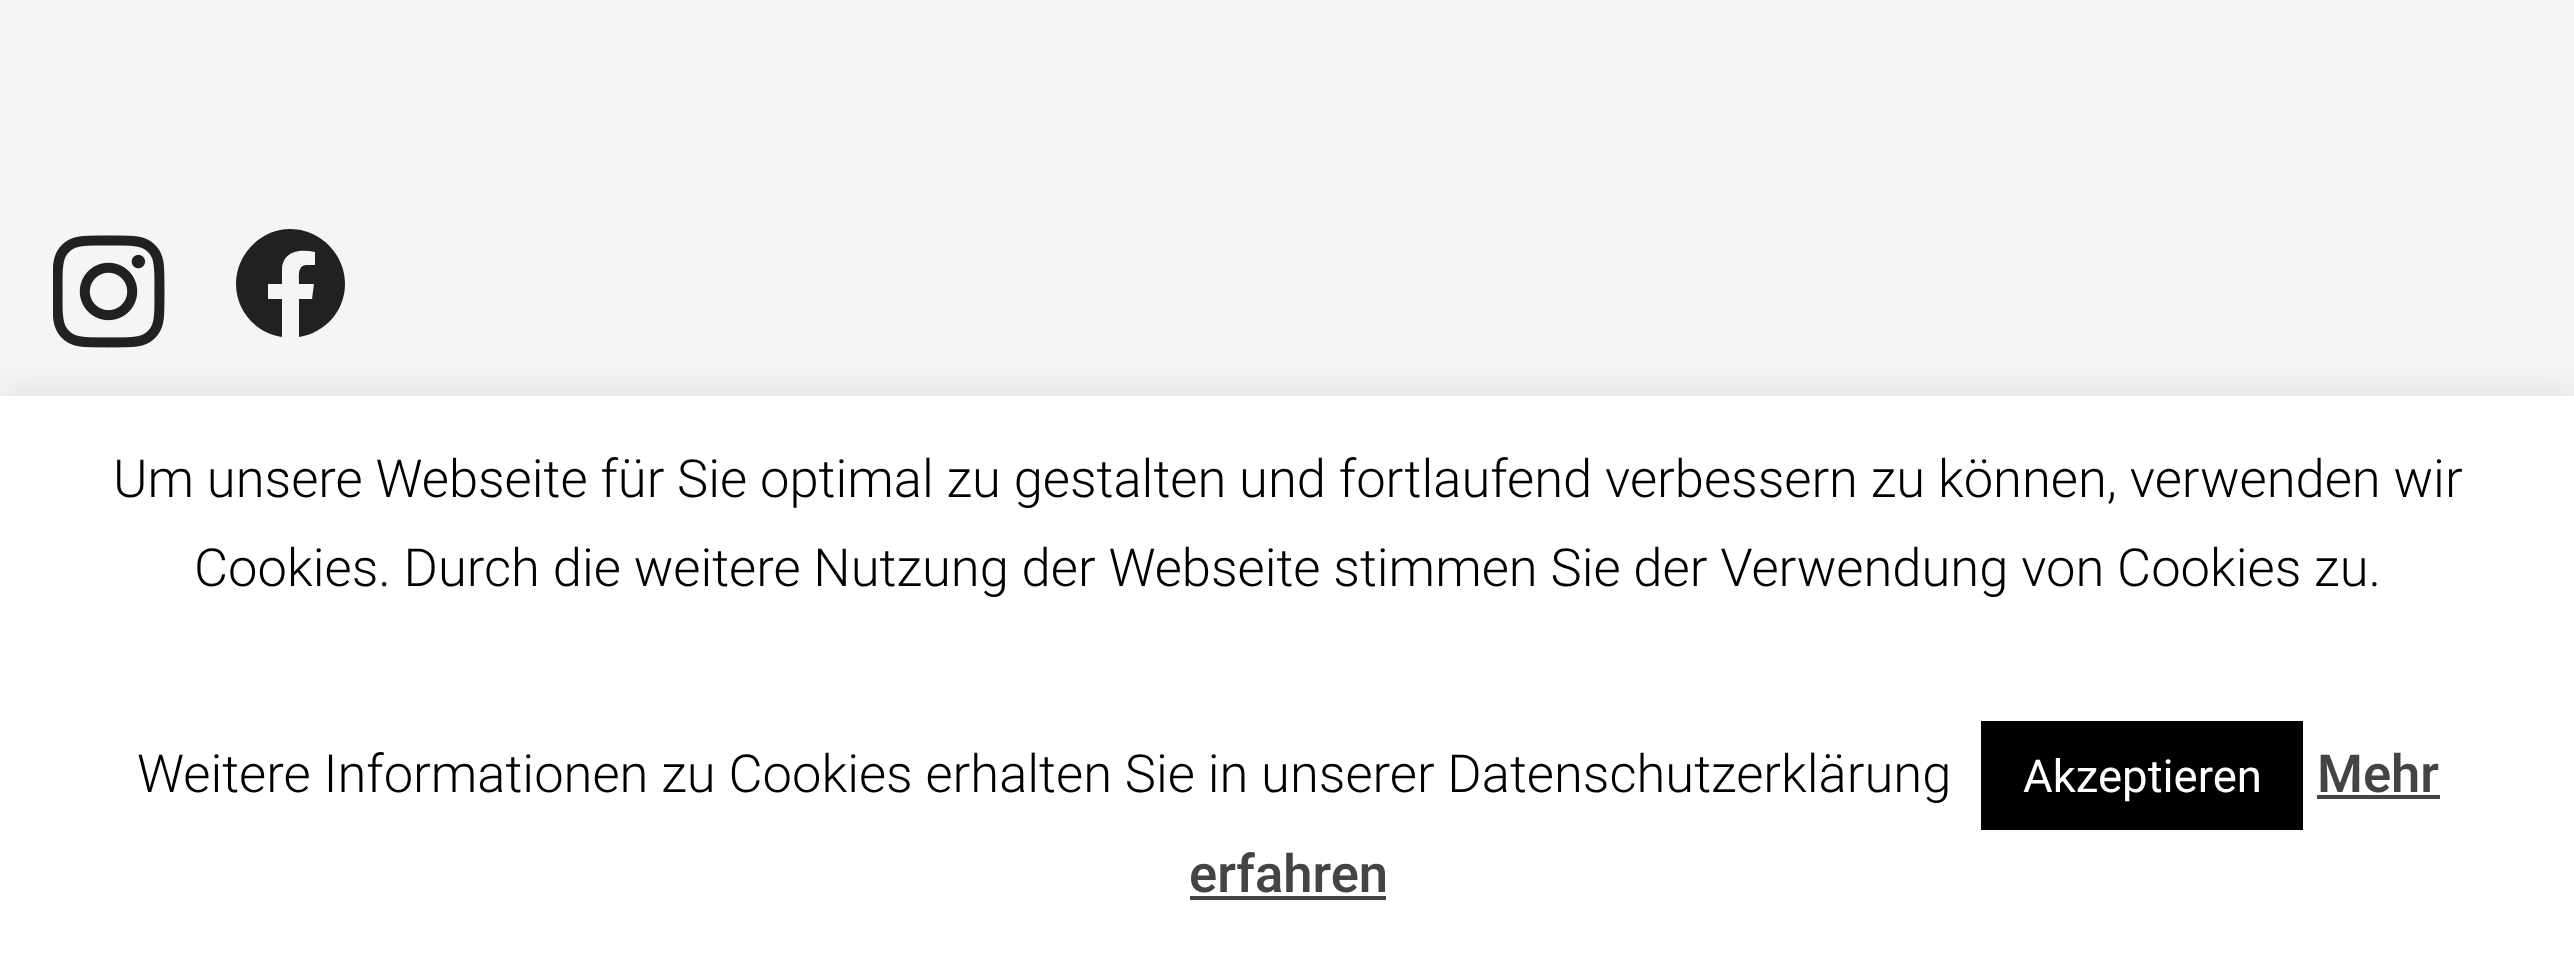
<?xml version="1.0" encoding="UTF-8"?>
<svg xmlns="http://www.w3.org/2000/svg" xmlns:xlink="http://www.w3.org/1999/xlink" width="2574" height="960">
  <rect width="100%" height="100%" fill="#f5f5f5" />
  <image x="53" y="235" width="112" height="113" xlink:href="image1.png" />
  <path d="M 345 284 c 0 -30 -25 -55 -55 -55 c -29 0 -54 25 -54 55 c 0 27 20 49 46 53 v -38 h -14 v -15 h 14 v -17 c 3 -17 19 -18 33 -15 v 13 h -9 c -9 1 -7 12 -7 19 h 15 l -2 15 h -13 v 38 c 26 -4 46 -26 46 -53 z" fill="#212121" />
  <rect y="392" width="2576" height="567" fill="#acabab" fill-opacity="0.3" filter="blur(17.5px)" />
  <rect y="396" width="2574" height="564" fill="#ffffff" />
  <rect x="1981" y="721" width="322" height="109" fill="#000000" />
  <rect x="2317" y="795" width="123" height="4" fill="#444444" />
  <rect x="1190" y="896" width="196" height="4" fill="#444444" />
  <text x="113" y="497" style="font-family: Roboto; font-size: 52.5px; font-weight: 300; fill: #000000">Um unsere Webseite für Sie optimal zu gestalten und fortlaufend verbessern zu können, verwenden wir</text>
  <text x="194" y="586" style="font-family: Roboto; font-size: 52.5px; font-weight: 300; fill: #000000">Cookies. Durch die weitere Nutzung der Webseite stimmen Sie der Verwendung von Cookies zu.</text>
  <text x="137" y="792" style="font-family: Roboto; font-size: 52.5px; font-weight: 300; fill: #000000">Weitere Informationen zu Cookies erhalten Sie in unserer Datenschutzerklärung</text>
  <text x="2023" y="792" style="font-family: Roboto; font-size: 45.5px; fill: #ffffff">Akzeptieren</text>
  <text x="2317" y="792" style="font-family: Roboto; font-size: 52.5px; font-weight: 500; fill: #444444">Mehr</text>
  <text x="1189" y="892" style="font-family: Roboto; font-size: 52.5px; font-weight: 500; fill: #444444">erfahren</text>
</svg>
